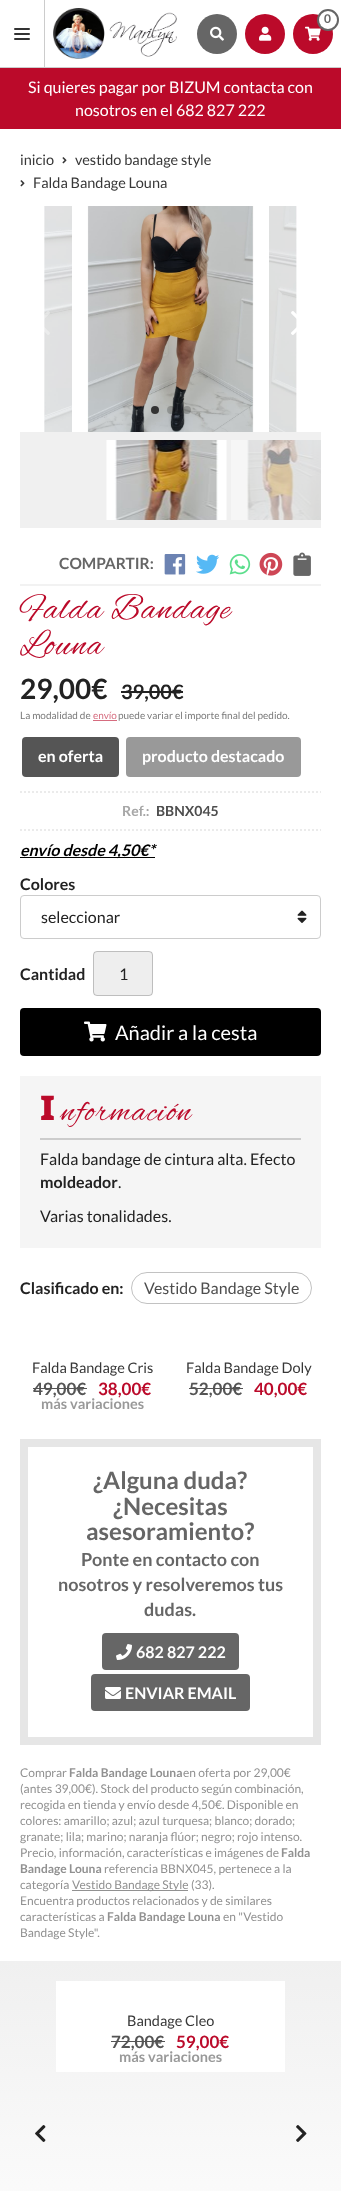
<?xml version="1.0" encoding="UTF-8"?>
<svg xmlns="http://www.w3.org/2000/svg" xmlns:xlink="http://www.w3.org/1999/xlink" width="341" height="2191">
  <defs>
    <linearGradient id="g1" gradientUnits="userSpaceOnUse" x1="170" y1="1961" x2="171" y2="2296"><stop offset="0" stop-color="#f0f0f0" /><stop offset="1" stop-color="#ffffff" /></linearGradient>
  </defs>
  <rect width="100%" height="100%" fill="#ffffff" />
  <rect y="67" width="341" height="1" fill="#cccccc" />
  <rect x="44" width="1" height="67" fill="#cccccc" />
  <rect x="14" y="28" width="16" height="2" rx="1" fill="#333333" />
  <rect x="14" y="33" width="16" height="2" rx="1" fill="#333333" />
  <rect x="14" y="38" width="16" height="2" rx="1" fill="#333333" />
  <image x="53" y="8" width="124" height="51" xlink:href="image1.png" />
  <circle cx="217" cy="34" r="20" fill="#666666" />
  <image x="210" y="26" width="14" height="15" xlink:href="image2.png" />
  <circle cx="265" cy="34" r="20" fill="#bb0a2a" />
  <image x="259" y="26" width="13" height="15" xlink:href="image3.png" />
  <circle cx="313" cy="34" r="20" fill="#bb0a2a" />
  <image x="305" y="26" width="16" height="15" xlink:href="image4.png" />
  <circle cx="328" cy="20" r="10" fill="#ffffff" stroke="#666666" stroke-width="2" />
  <rect y="68" width="341" height="61" fill="#bb0a2a" />
  <image x="62" y="157" width="5" height="7" xlink:href="image5.png" />
  <image x="20" y="180" width="5" height="7" xlink:href="image5.png" />
  <rect x="20" y="432" width="301" height="96" fill="#f0f0f0" />
  <image x="20" y="206" width="301" height="226" xlink:href="image6.png" />
  <image x="72" y="206" width="197" height="226" xlink:href="image7.png" />
  <image x="44" y="311" width="6" height="24" xlink:href="image8.png" />
  <image x="291" y="311" width="6" height="24" xlink:href="image9.png" />
  <circle cx="155" cy="410" r="4" fill="#333333" />
  <circle cx="171" cy="410" r="4" fill="#000000" fill-opacity="0.2" />
  <circle cx="187" cy="410" r="4" fill="#000000" fill-opacity="0.2" />
  <image x="106" y="440" width="121" height="80" xlink:href="image10.png" />
  <image x="231" y="440" width="90" height="80" xlink:href="image11.png" />
  <rect x="20" y="584" width="301" height="2" fill="#f2f2f2" />
  <image x="164" y="554" width="22" height="21" xlink:href="image12.png" />
  <image x="196" y="554" width="23" height="20" xlink:href="image13.png" />
  <image x="229" y="554" width="22" height="21" xlink:href="image14.png" />
  <image x="259" y="552" width="24" height="24" xlink:href="image15.png" />
  <image x="293" y="552" width="18" height="24" xlink:href="image16.png" />
  <rect x="121" y="691" width="62" height="2" fill="#222222" />
  <rect x="93" y="720" width="24" height="1" fill="#d66c7f" />
  <rect x="22" y="737" width="97" height="40" rx="4" fill="#555555" />
  <rect x="126" y="737" width="175" height="40" rx="4" fill="#999999" />
  <path d="M 20 792 h 301" fill="none" stroke="#ebebeb" stroke-width="2" stroke-dasharray="2 2" />
  <path d="M 20 830 h 301" fill="none" stroke="#ebebeb" stroke-width="2" stroke-dasharray="2 2" />
  <rect x="20" y="857" width="119" height="1" fill="#000000" />
  <rect x="139" y="857" width="16" height="1" fill="#000000" />
  <rect x="20.5" y="895.5" width="300" height="43" rx="3.5" fill="none" stroke="#cccccc" />
  <image x="297" y="910" width="10" height="13" xlink:href="image17.png" />
  <rect x="93" y="951" width="60" height="45" rx="4" fill="#eeeeee" />
  <rect x="93.5" y="951.5" width="59" height="44" rx="3.5" fill="none" stroke="#000000" stroke-opacity="0.2" />
  <rect x="20" y="1008" width="301" height="48" rx="4" fill="#000000" />
  <image x="84" y="1021" width="23" height="21" xlink:href="image18.png" />
  <rect x="20" y="1076" width="301" height="172" fill="#f5f5f5" />
  <rect x="40" y="1138" width="261" height="2" fill="#cccccc" />
  <rect x="131.5" y="1272.5" width="180" height="31" rx="15.5" fill="none" stroke="#c2c2c2" />
  <rect x="33" y="1388" width="54" height="1" fill="#545454" />
  <rect x="189" y="1388" width="54" height="1" fill="#545454" />
  <rect x="24" y="1443" width="293" height="298" fill="none" stroke="#e6e6e6" stroke-width="8" />
  <rect x="102" y="1633" width="137" height="37" rx="4" fill="#666666" />
  <image x="116" y="1644" width="16" height="16" xlink:href="image19.png" />
  <rect x="91" y="1674" width="159" height="37" rx="4" fill="#666666" />
  <image x="105" y="1687" width="16" height="12" xlink:href="image20.png" />
  <rect x="72" y="1890" width="116" height="1" fill="#919191" />
  <rect y="1961" width="341" height="230" fill="url(#g1)" />
  <rect x="56" y="1981" width="229" height="91" fill="#ffffff" />
  <rect x="111" y="2041" width="54" height="1" fill="#545454" />
  <image x="35" y="2125" width="11" height="17" xlink:href="image21.png" />
  <image x="296" y="2125" width="11" height="17" xlink:href="image22.png" />
  <text x="324" y="23" style="font-family: Lato; font-size: 12px; font-weight: bold; fill: #666666">0</text>
  <text x="28" y="93" style="font-family: Lato; font-size: 16px; fill: #ffffff">Si quieres pagar por BIZUM contacta con</text>
  <text x="75" y="116" style="font-family: Lato; font-size: 16px; fill: #ffffff">nosotros en el 682 827 222</text>
  <text x="20" y="165" style="font-family: Lato; font-size: 14.5px; fill: #383838">inicio</text>
  <text x="75" y="165" style="font-family: Lato; font-size: 14.5px; fill: #383838">vestido bandage style</text>
  <text x="33" y="188" style="font-family: Lato; font-size: 14.5px; fill: #383838">Falda Bandage Louna</text>
  <text x="59" y="569" style="font-family: Lato; font-size: 15.5px; font-weight: bold; fill: #666666">COMPARTIR:</text>
  <text x="20" y="618" style="font-family: Alex Brush; font-size: 36px; letter-spacing: 1px; fill: #bb0a2a">Falda Bandage</text>
  <text x="20" y="654" style="font-family: Alex Brush; font-size: 36px; letter-spacing: 1px; fill: #bb0a2a">Louna</text>
  <text x="20" y="699" style="font-family: Lato; font-size: 28px; font-weight: bold; fill: #222222">29,00€</text>
  <text x="121" y="699" style="font-family: Lato; font-size: 20px; font-weight: bold; fill: #222222">39,00€</text>
  <text x="20" y="719" style="font-family: Lato; font-size: 10px; fill: #7a7a7a">La modalidad de</text>
  <text x="93" y="719" style="font-family: Lato; font-size: 10px; fill: #d66c7f">envío</text>
  <text x="118" y="719" style="font-family: Lato; font-size: 10px; fill: #7a7a7a">puede variar el importe final del pedido.</text>
  <text x="38" y="762" style="font-family: Lato; font-size: 16px; font-weight: bold; fill: #ffffff">en oferta</text>
  <text x="142" y="762" style="font-family: Lato; font-size: 16px; font-weight: bold; fill: #ffffff">producto destacado</text>
  <text x="122" y="816" style="font-family: Lato; font-size: 14px; font-weight: bold; fill: #a7a7a7">Ref.:</text>
  <text x="156" y="816" style="font-family: Lato; font-size: 14px; font-weight: bold; fill: #4e4e4e">BBNX045</text>
  <text x="20" y="856" style="font-family: Lato; font-size: 16px; font-weight: bold; font-style: italic; fill: #000000">envío desde 4,50€*</text>
  <text x="20" y="890" style="font-family: Lato; font-size: 16px; font-weight: bold; fill: #222222">Colores</text>
  <text x="41" y="923" style="font-family: Lato; font-size: 16px; fill: #222222">seleccionar</text>
  <text x="20" y="980" style="font-family: Lato; font-size: 16px; font-weight: bold; fill: #222222">Cantidad</text>
  <text x="119" y="980" style="font-family: Lato; font-size: 16px; fill: #222222">1</text>
  <text x="115" y="1040" style="font-family: Lato; font-size: 20px; fill: #ffffff">Añadir a la cesta</text>
  <text x="40" y="1120" style="font-family: Noto Sans; font-size: 34px; font-weight: 900; letter-spacing: 1px; fill: #bb0a2a">I</text>
  <text x="61" y="1120" style="font-family: Alex Brush; font-size: 34px; letter-spacing: 1px; fill: #bb0a2a">nformación</text>
  <text x="40" y="1165" style="font-family: Lato; font-size: 16px; fill: #222222">Falda bandage de cintura alta. Efecto</text>
  <text x="40" y="1188" style="font-family: Lato; font-size: 16px; font-weight: bold; fill: #222222">moldeador</text>
  <text x="118" y="1188" style="font-family: Lato; font-size: 16px; fill: #222222">.</text>
  <text x="40" y="1222" style="font-family: Lato; font-size: 16px; fill: #222222">Varias tonalidades.</text>
  <text x="20" y="1294" style="font-family: Lato; font-size: 16px; font-weight: bold; fill: #222222">Clasificado en:</text>
  <text x="144" y="1294" style="font-family: Lato; font-size: 16px; fill: #4e4e4e">Vestido Bandage Style</text>
  <text x="32" y="1373" style="font-family: Lato; font-size: 14.5px; fill: #383838">Falda Bandage Cris</text>
  <text x="33" y="1395" style="font-family: Lato; font-size: 17px; font-weight: bold; fill: #545454">49,00€</text>
  <text x="98" y="1395" style="font-family: Lato; font-size: 17px; font-weight: bold; fill: #bb0a2a">38,00€</text>
  <text x="41" y="1409" style="font-family: Lato; font-size: 14.5px; font-weight: bold; fill: #999999">más variaciones</text>
  <text x="186" y="1373" style="font-family: Lato; font-size: 14.5px; fill: #383838">Falda Bandage Doly</text>
  <text x="189" y="1395" style="font-family: Lato; font-size: 17px; font-weight: bold; fill: #545454">52,00€</text>
  <text x="254" y="1395" style="font-family: Lato; font-size: 17px; font-weight: bold; fill: #bb0a2a">40,00€</text>
  <text x="93" y="1489" style="font-family: Lato; font-size: 24px; font-weight: bold; fill: #666666">¿Alguna duda?</text>
  <text x="113" y="1515" style="font-family: Lato; font-size: 24px; font-weight: bold; fill: #666666">¿Necesitas</text>
  <text x="86" y="1540" style="font-family: Lato; font-size: 24px; font-weight: bold; fill: #666666">asesoramiento?</text>
  <text x="81" y="1566" style="font-family: Lato; font-size: 18px; font-weight: bold; fill: #666666">Ponte en contacto con</text>
  <text x="58" y="1591" style="font-family: Lato; font-size: 18px; font-weight: bold; fill: #666666">nosotros y resolveremos tus</text>
  <text x="144" y="1616" style="font-family: Lato; font-size: 18px; font-weight: bold; fill: #666666">dudas.</text>
  <text x="136" y="1658" style="font-family: Lato; font-size: 16px; font-weight: bold; fill: #ffffff">682 827 222</text>
  <text x="125" y="1699" style="font-family: Lato; font-size: 16px; font-weight: bold; fill: #ffffff">ENVIAR EMAIL</text>
  <text x="20" y="1777" style="font-family: Lato; font-size: 12px; fill: #919191">Comprar</text>
  <text x="69" y="1777" style="font-family: Lato; font-size: 12px; font-weight: bold; fill: #919191">Falda Bandage Louna</text>
  <text x="183" y="1777" style="font-family: Lato; font-size: 12px; fill: #919191">en oferta por 29,00€</text>
  <text x="20" y="1793" style="font-family: Lato; font-size: 12px; fill: #919191">(antes 39,00€). Stock del producto según combinación,</text>
  <text x="20" y="1809" style="font-family: Lato; font-size: 12px; fill: #919191">recogida en tienda y envío desde 4,50€. Disponible en</text>
  <text x="20" y="1825" style="font-family: Lato; font-size: 12px; fill: #919191">colores: amarillo; azul; azul turquesa; blanco; dorado;</text>
  <text x="20" y="1841" style="font-family: Lato; font-size: 12px; fill: #919191">granate; lila; marino; naranja flúor; negro; rojo intenso.</text>
  <text x="20" y="1857" style="font-family: Lato; font-size: 12px; fill: #919191">Precio, información, características e imágenes de</text>
  <text x="281" y="1857" style="font-family: Lato; font-size: 12px; font-weight: bold; fill: #919191">Falda</text>
  <text x="20" y="1873" style="font-family: Lato; font-size: 12px; font-weight: bold; fill: #919191">Bandage Louna</text>
  <text x="104" y="1873" style="font-family: Lato; font-size: 12px; fill: #919191">referencia BBNX045, pertenece a la</text>
  <text x="20" y="1889" style="font-family: Lato; font-size: 12px; fill: #919191">categoría</text>
  <text x="72" y="1889" style="font-family: Lato; font-size: 12px; fill: #919191">Vestido Bandage Style (33).</text>
  <text x="20" y="1905" style="font-family: Lato; font-size: 12px; fill: #919191">Encuentra productos relacionados y de similares</text>
  <text x="20" y="1921" style="font-family: Lato; font-size: 12px; fill: #919191">características a</text>
  <text x="107" y="1921" style="font-family: Lato; font-size: 12px; font-weight: bold; fill: #919191">Falda Bandage Louna</text>
  <text x="223" y="1921" style="font-family: Lato; font-size: 12px; fill: #919191">en "Vestido</text>
  <text x="20" y="1937" style="font-family: Lato; font-size: 12px; fill: #919191">Bandage Style".</text>
  <text x="127" y="2026" style="font-family: Lato; font-size: 14.5px; fill: #383838">Bandage Cleo</text>
  <text x="111" y="2048" style="font-family: Lato; font-size: 17px; font-weight: bold; fill: #545454">72,00€</text>
  <text x="176" y="2048" style="font-family: Lato; font-size: 17px; font-weight: bold; fill: #bb0a2a">59,00€</text>
  <text x="119" y="2062" style="font-family: Lato; font-size: 14.5px; font-weight: bold; fill: #999999">más variaciones</text>
</svg>
